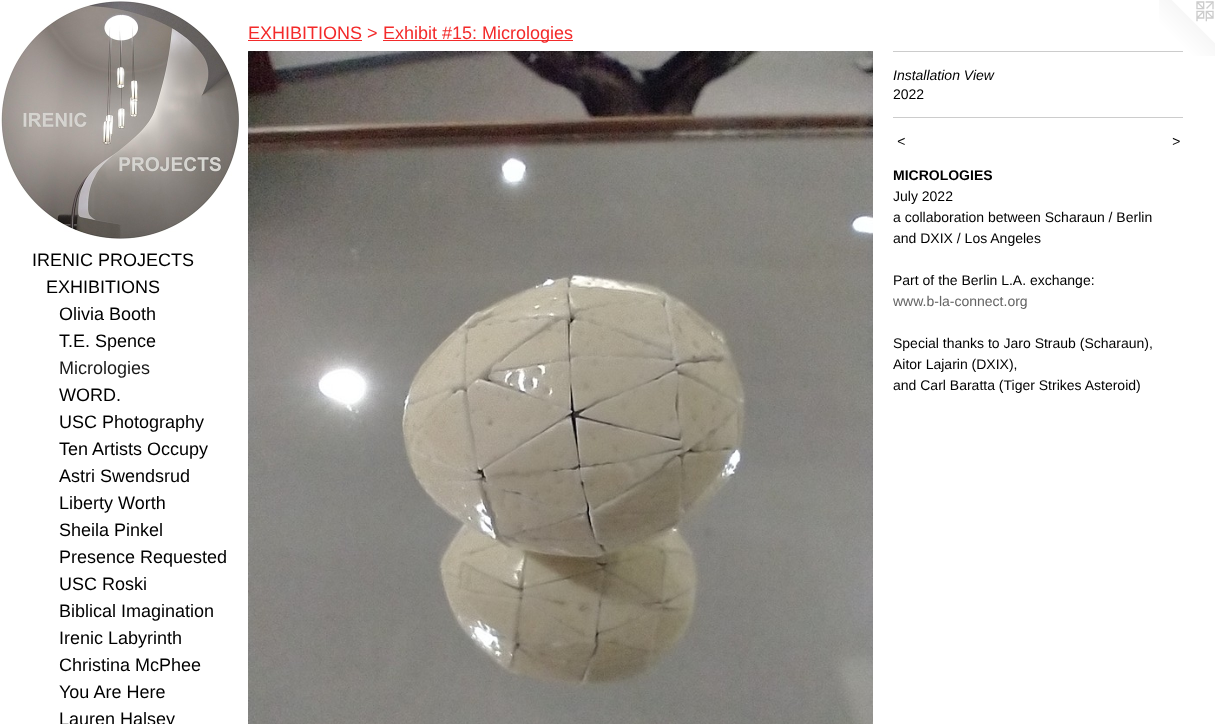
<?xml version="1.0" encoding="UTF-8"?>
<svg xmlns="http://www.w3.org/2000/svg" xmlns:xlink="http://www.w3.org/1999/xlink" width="1215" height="724">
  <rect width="100%" height="100%" fill="#ffffff" />
  <rect x="248" y="40" width="114" height="1" fill="#f32a2a" />
  <rect x="383" y="40" width="190" height="1" fill="#f32a2a" />
  <image x="248" y="51" width="625" height="673" xlink:href="image1.png" />
  <image x="1159" y="0" width="56" height="56" xlink:href="image2.png" />
  <rect x="893" y="51" width="290" height="1" fill="#cccccc" />
  <rect x="893" y="117" width="290" height="1" fill="#cccccc" />
  <image x="1" y="1" width="238" height="238" xlink:href="image3.png" />
  <text x="248" y="39" style="font-family: Liberation Sans; font-size: 18px; fill: #f32a2a">EXHIBITIONS &gt;</text>
  <text x="383" y="39" style="font-family: Liberation Sans; font-size: 18px; fill: #f32a2a">Exhibit #15: Micrologies</text>
  <text x="893" y="80" style="font-family: Liberation Sans; font-size: 14px; font-style: italic; fill: #000000">Installation View</text>
  <text x="893" y="99" style="font-family: Liberation Sans; font-size: 14px; fill: #000000">2022</text>
  <text x="897" y="146" style="font-family: Liberation Sans; font-size: 14px; font-style: italic; letter-spacing: 1px; fill: #000000">&lt;</text>
  <text x="1172" y="146" style="font-family: Liberation Sans; font-size: 14px; font-style: italic; letter-spacing: 1px; fill: #000000">&gt;</text>
  <text x="893" y="180" style="font-family: Liberation Sans; font-size: 14px; font-weight: bold; fill: #000000">MICROLOGIES</text>
  <text x="893" y="201" style="font-family: Liberation Sans; font-size: 14px; fill: #000000">July 2022</text>
  <text x="893" y="222" style="font-family: Liberation Sans; font-size: 14px; fill: #000000">a collaboration between Scharaun / Berlin</text>
  <text x="893" y="243" style="font-family: Liberation Sans; font-size: 14px; fill: #000000">and DXIX / Los Angeles</text>
  <text x="893" y="285" style="font-family: Liberation Sans; font-size: 14px; fill: #000000">Part of the Berlin L.A. exchange:</text>
  <text x="893" y="306" style="font-family: Liberation Sans; font-size: 14px; fill: #636363">www.b-la-connect.org</text>
  <text x="893" y="348" style="font-family: Liberation Sans; font-size: 14px; fill: #000000">Special thanks to Jaro Straub (Scharaun),</text>
  <text x="893" y="369" style="font-family: Liberation Sans; font-size: 14px; fill: #000000">Aitor Lajarin (DXIX),</text>
  <text x="893" y="390" style="font-family: Liberation Sans; font-size: 14px; fill: #000000">and Carl Baratta (Tiger Strikes Asteroid)</text>
  <text x="32" y="266" style="font-family: Liberation Sans; font-size: 18px; fill: #000000">IRENIC PROJECTS</text>
  <text x="46" y="293" style="font-family: Liberation Sans; font-size: 18px; fill: #000000">EXHIBITIONS</text>
  <text x="59" y="320" style="font-family: Liberation Sans; font-size: 18px; fill: #000000">Olivia Booth</text>
  <text x="59" y="347" style="font-family: Liberation Sans; font-size: 18px; fill: #000000">T.E. Spence</text>
  <text x="59" y="374" style="font-family: Liberation Sans; font-size: 18px; fill: #1a1a1a">Micrologies</text>
  <text x="59" y="401" style="font-family: Liberation Sans; font-size: 18px; fill: #000000">WORD.</text>
  <text x="59" y="428" style="font-family: Liberation Sans; font-size: 18px; fill: #000000">USC Photography</text>
  <text x="59" y="455" style="font-family: Liberation Sans; font-size: 18px; fill: #000000">Ten Artists Occupy</text>
  <text x="59" y="482" style="font-family: Liberation Sans; font-size: 18px; fill: #000000">Astri Swendsrud</text>
  <text x="59" y="509" style="font-family: Liberation Sans; font-size: 18px; fill: #000000">Liberty Worth</text>
  <text x="59" y="536" style="font-family: Liberation Sans; font-size: 18px; fill: #000000">Sheila Pinkel</text>
  <text x="59" y="563" style="font-family: Liberation Sans; font-size: 18px; fill: #000000">Presence Requested</text>
  <text x="59" y="590" style="font-family: Liberation Sans; font-size: 18px; fill: #000000">USC Roski</text>
  <text x="59" y="617" style="font-family: Liberation Sans; font-size: 18px; fill: #000000">Biblical Imagination</text>
  <text x="59" y="644" style="font-family: Liberation Sans; font-size: 18px; fill: #000000">Irenic Labyrinth</text>
  <text x="59" y="671" style="font-family: Liberation Sans; font-size: 18px; fill: #000000">Christina McPhee</text>
  <text x="59" y="698" style="font-family: Liberation Sans; font-size: 18px; fill: #000000">You Are Here</text>
  <text x="59" y="725" style="font-family: Liberation Sans; font-size: 18px; fill: #000000">Lauren Halsey</text>
</svg>
